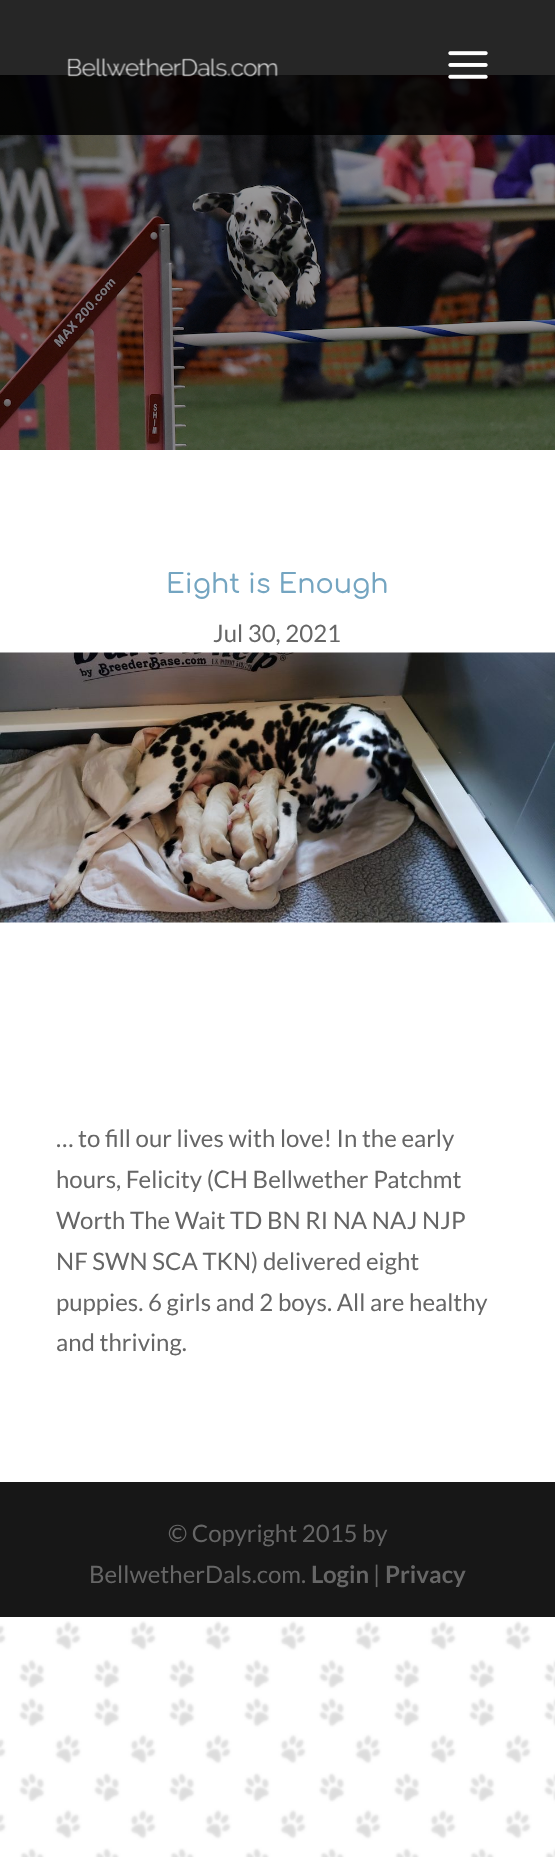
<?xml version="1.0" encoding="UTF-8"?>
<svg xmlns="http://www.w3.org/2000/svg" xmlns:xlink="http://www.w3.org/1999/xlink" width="555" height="1857">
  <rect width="100%" height="100%" fill="#ffffff" />
  <image x="0" y="1617" width="555" height="240" xlink:href="image1.png" />
  <image x="0" y="75" width="555" height="375" xlink:href="image4.png" />
  <rect width="555" height="135" fill="#000000" fill-opacity="0.85" />
  <image x="67" y="58" width="211" height="19" xlink:href="image2.png" />
  <image x="448" y="51" width="40" height="28" xlink:href="image3.png" />
  <image x="0" y="652" width="555" height="271" xlink:href="image5.png" />
  <rect y="1482" width="555" height="135" fill="#171717" />
  <text x="166" y="593" style="font-family: Comfortaa; font-size: 27px; font-weight: 500; fill: #74a5c1">Eight is Enough</text>
  <text x="213" y="642" style="font-family: Lato; font-size: 24px; fill: #666666">Jul 30, 2021</text>
  <text x="56" y="1147" style="font-family: Lato; font-size: 24px; fill: #666666">… to fill our lives with love! In the early</text>
  <text x="56" y="1188" style="font-family: Lato; font-size: 24px; fill: #666666">hours, Felicity (CH Bellwether Patchmt</text>
  <text x="56" y="1229" style="font-family: Lato; font-size: 24px; fill: #666666">Worth The Wait TD BN RI NA NAJ NJP</text>
  <text x="56" y="1270" style="font-family: Lato; font-size: 24px; fill: #666666">NF SWN SCA TKN) delivered eight</text>
  <text x="56" y="1311" style="font-family: Lato; font-size: 24px; fill: #666666">puppies. 6 girls and 2 boys. All are healthy</text>
  <text x="56" y="1351" style="font-family: Lato; font-size: 24px; fill: #666666">and thriving.</text>
  <text x="168" y="1542" style="font-family: Lato; font-size: 24px; fill: #666666">© Copyright 2015 by</text>
  <text x="89" y="1583" style="font-family: Lato; font-size: 24px; fill: #666666">BellwetherDals.com.</text>
  <text x="311" y="1583" style="font-family: Lato; font-size: 24px; font-weight: bold; fill: #666666">Login</text>
  <text x="373" y="1583" style="font-family: Lato; font-size: 24px; fill: #666666">|</text>
  <text x="385" y="1583" style="font-family: Lato; font-size: 24px; font-weight: bold; fill: #666666">Privacy</text>
</svg>
